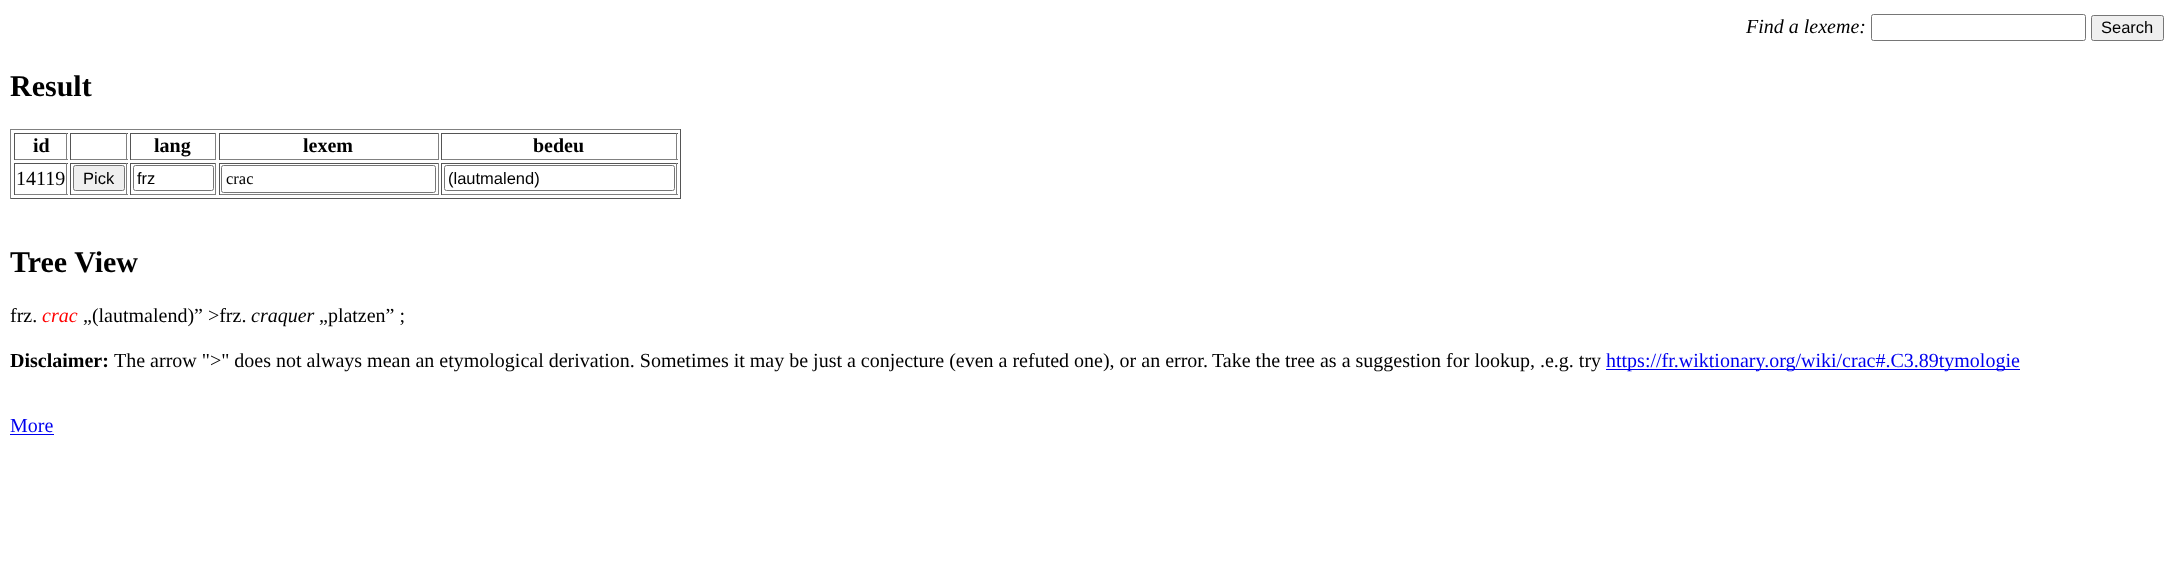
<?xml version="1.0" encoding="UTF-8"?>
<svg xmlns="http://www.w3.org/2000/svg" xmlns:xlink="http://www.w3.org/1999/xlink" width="2177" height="561">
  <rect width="100%" height="100%" fill="#ffffff" />
  <rect x="1871.5" y="14.5" width="214" height="26" rx="2" fill="none" stroke="#767676" />
  <rect x="2091.5" y="15.5" width="72" height="25" rx="2" fill="#efefef" stroke="#767676" />
  <rect x="10" y="129" width="671" height="1" fill="#808080" />
  <rect x="680" y="129" width="1" height="70" fill="#555555" />
  <rect x="10" y="198" width="671" height="1" fill="#555555" />
  <rect x="10" y="129" width="1" height="70" fill="#808080" />
  <rect x="14" y="133" width="54" height="1" fill="#555555" />
  <rect x="66" y="133" width="1" height="27" fill="#808080" />
  <rect x="14" y="159" width="54" height="1" fill="#808080" />
  <rect x="14" y="133" width="1" height="27" fill="#555555" />
  <rect x="70" y="133" width="58" height="1" fill="#555555" />
  <rect x="126" y="133" width="1" height="27" fill="#808080" />
  <rect x="70" y="159" width="58" height="1" fill="#808080" />
  <rect x="70" y="133" width="1" height="27" fill="#555555" />
  <rect x="130" y="133" width="86" height="1" fill="#555555" />
  <rect x="215" y="133" width="1" height="27" fill="#808080" />
  <rect x="130" y="159" width="86" height="1" fill="#808080" />
  <rect x="130" y="133" width="1" height="27" fill="#555555" />
  <rect x="219" y="133" width="220" height="1" fill="#555555" />
  <rect x="438" y="133" width="1" height="27" fill="#808080" />
  <rect x="219" y="159" width="220" height="1" fill="#808080" />
  <rect x="219" y="133" width="1" height="27" fill="#555555" />
  <rect x="441" y="133" width="237" height="1" fill="#555555" />
  <rect x="676" y="133" width="1" height="27" fill="#808080" />
  <rect x="441" y="159" width="237" height="1" fill="#808080" />
  <rect x="441" y="133" width="1" height="27" fill="#555555" />
  <rect x="14" y="163" width="54" height="1" fill="#555555" />
  <rect x="66" y="163" width="1" height="32" fill="#808080" />
  <rect x="14" y="194" width="54" height="1" fill="#808080" />
  <rect x="14" y="163" width="1" height="32" fill="#555555" />
  <rect x="70" y="163" width="58" height="1" fill="#555555" />
  <rect x="126" y="163" width="1" height="32" fill="#808080" />
  <rect x="70" y="194" width="58" height="1" fill="#808080" />
  <rect x="70" y="163" width="1" height="32" fill="#555555" />
  <rect x="73.5" y="165.5" width="51" height="25" rx="2" fill="#efefef" stroke="#767676" />
  <rect x="130" y="163" width="86" height="1" fill="#555555" />
  <rect x="215" y="163" width="1" height="32" fill="#808080" />
  <rect x="130" y="194" width="86" height="1" fill="#808080" />
  <rect x="130" y="163" width="1" height="32" fill="#555555" />
  <rect x="133.5" y="165.5" width="80" height="25" rx="2" fill="none" stroke="#767676" />
  <rect x="219" y="163" width="220" height="1" fill="#555555" />
  <rect x="438" y="163" width="1" height="32" fill="#808080" />
  <rect x="219" y="194" width="220" height="1" fill="#808080" />
  <rect x="219" y="163" width="1" height="32" fill="#555555" />
  <rect x="221.5" y="165.5" width="214" height="27" rx="2" fill="none" stroke="#767676" />
  <rect x="441" y="163" width="237" height="1" fill="#555555" />
  <rect x="676" y="163" width="1" height="32" fill="#808080" />
  <rect x="441" y="194" width="237" height="1" fill="#808080" />
  <rect x="441" y="163" width="1" height="32" fill="#555555" />
  <rect x="444.5" y="165.5" width="230" height="25" rx="2" fill="none" stroke="#767676" />
  <rect x="1606" y="369" width="414" height="1" fill="#0000ee" />
  <rect x="10" y="434" width="44" height="1" fill="#0000ee" />
  <text x="1746" y="33" style="font-family: Liberation Serif; font-size: 20px; font-style: italic; fill: #000000">Find a lexeme:</text>
  <text x="2101" y="33" style="font-family: Liberation Sans; font-size: 16.5px; fill: #000000">Search</text>
  <text x="10" y="96" style="font-family: Liberation Serif; font-size: 30px; font-weight: bold; fill: #000000">Result</text>
  <text x="33" y="152" style="font-family: Liberation Serif; font-size: 20px; font-weight: bold; fill: #000000">id</text>
  <text x="154" y="152" style="font-family: Liberation Serif; font-size: 20px; font-weight: bold; fill: #000000">lang</text>
  <text x="303" y="152" style="font-family: Liberation Serif; font-size: 20px; font-weight: bold; fill: #000000">lexem</text>
  <text x="533" y="152" style="font-family: Liberation Serif; font-size: 20px; font-weight: bold; fill: #000000">bedeu</text>
  <text x="16" y="185" style="font-family: Liberation Serif; font-size: 20px; fill: #000000">14119</text>
  <text x="83" y="184" style="font-family: Liberation Sans; font-size: 16.5px; fill: #000000">Pick</text>
  <text x="137" y="184" style="font-family: Liberation Sans; font-size: 16.5px; fill: #000000">frz</text>
  <text x="226" y="184" style="font-family: Liberation Serif; font-size: 16.5px; fill: #000000">crac</text>
  <text x="448" y="184" style="font-family: Liberation Sans; font-size: 16.5px; fill: #000000">(lautmalend)</text>
  <text x="10" y="272" style="font-family: Liberation Serif; font-size: 30px; font-weight: bold; fill: #000000">Tree View</text>
  <text x="10" y="322" style="font-family: Liberation Serif; font-size: 20px; fill: #000000">frz.</text>
  <text x="42" y="322" style="font-family: Liberation Serif; font-size: 20px; font-style: italic; fill: #ff0000">crac</text>
  <text x="83" y="322" style="font-family: Liberation Serif; font-size: 20px; fill: #000000">„(lautmalend)” &gt;frz.</text>
  <text x="251" y="322" style="font-family: Liberation Serif; font-size: 20px; font-style: italic; fill: #000000">craquer</text>
  <text x="319" y="322" style="font-family: Liberation Serif; font-size: 20px; fill: #000000">„platzen” ;</text>
  <text x="10" y="367" style="font-family: Liberation Serif; font-size: 20px; font-weight: bold; fill: #000000">Disclaimer:</text>
  <text x="114" y="367" style="font-family: Liberation Serif; font-size: 20px; fill: #000000">The arrow "&gt;" does not always mean an etymological derivation. Sometimes it may be just a conjecture (even a refuted one), or an error.</text>
  <text x="1212" y="367" style="font-family: Liberation Serif; font-size: 20px; fill: #000000">Take the tree as a suggestion for lookup, .e.g. try</text>
  <text x="1606" y="367" style="font-family: Liberation Serif; font-size: 20px; fill: #0000ee">https://fr.wiktionary.org/wiki/crac#.C3.89tymologie</text>
  <text x="10" y="432" style="font-family: Liberation Serif; font-size: 20px; fill: #0000ee">More</text>
</svg>
